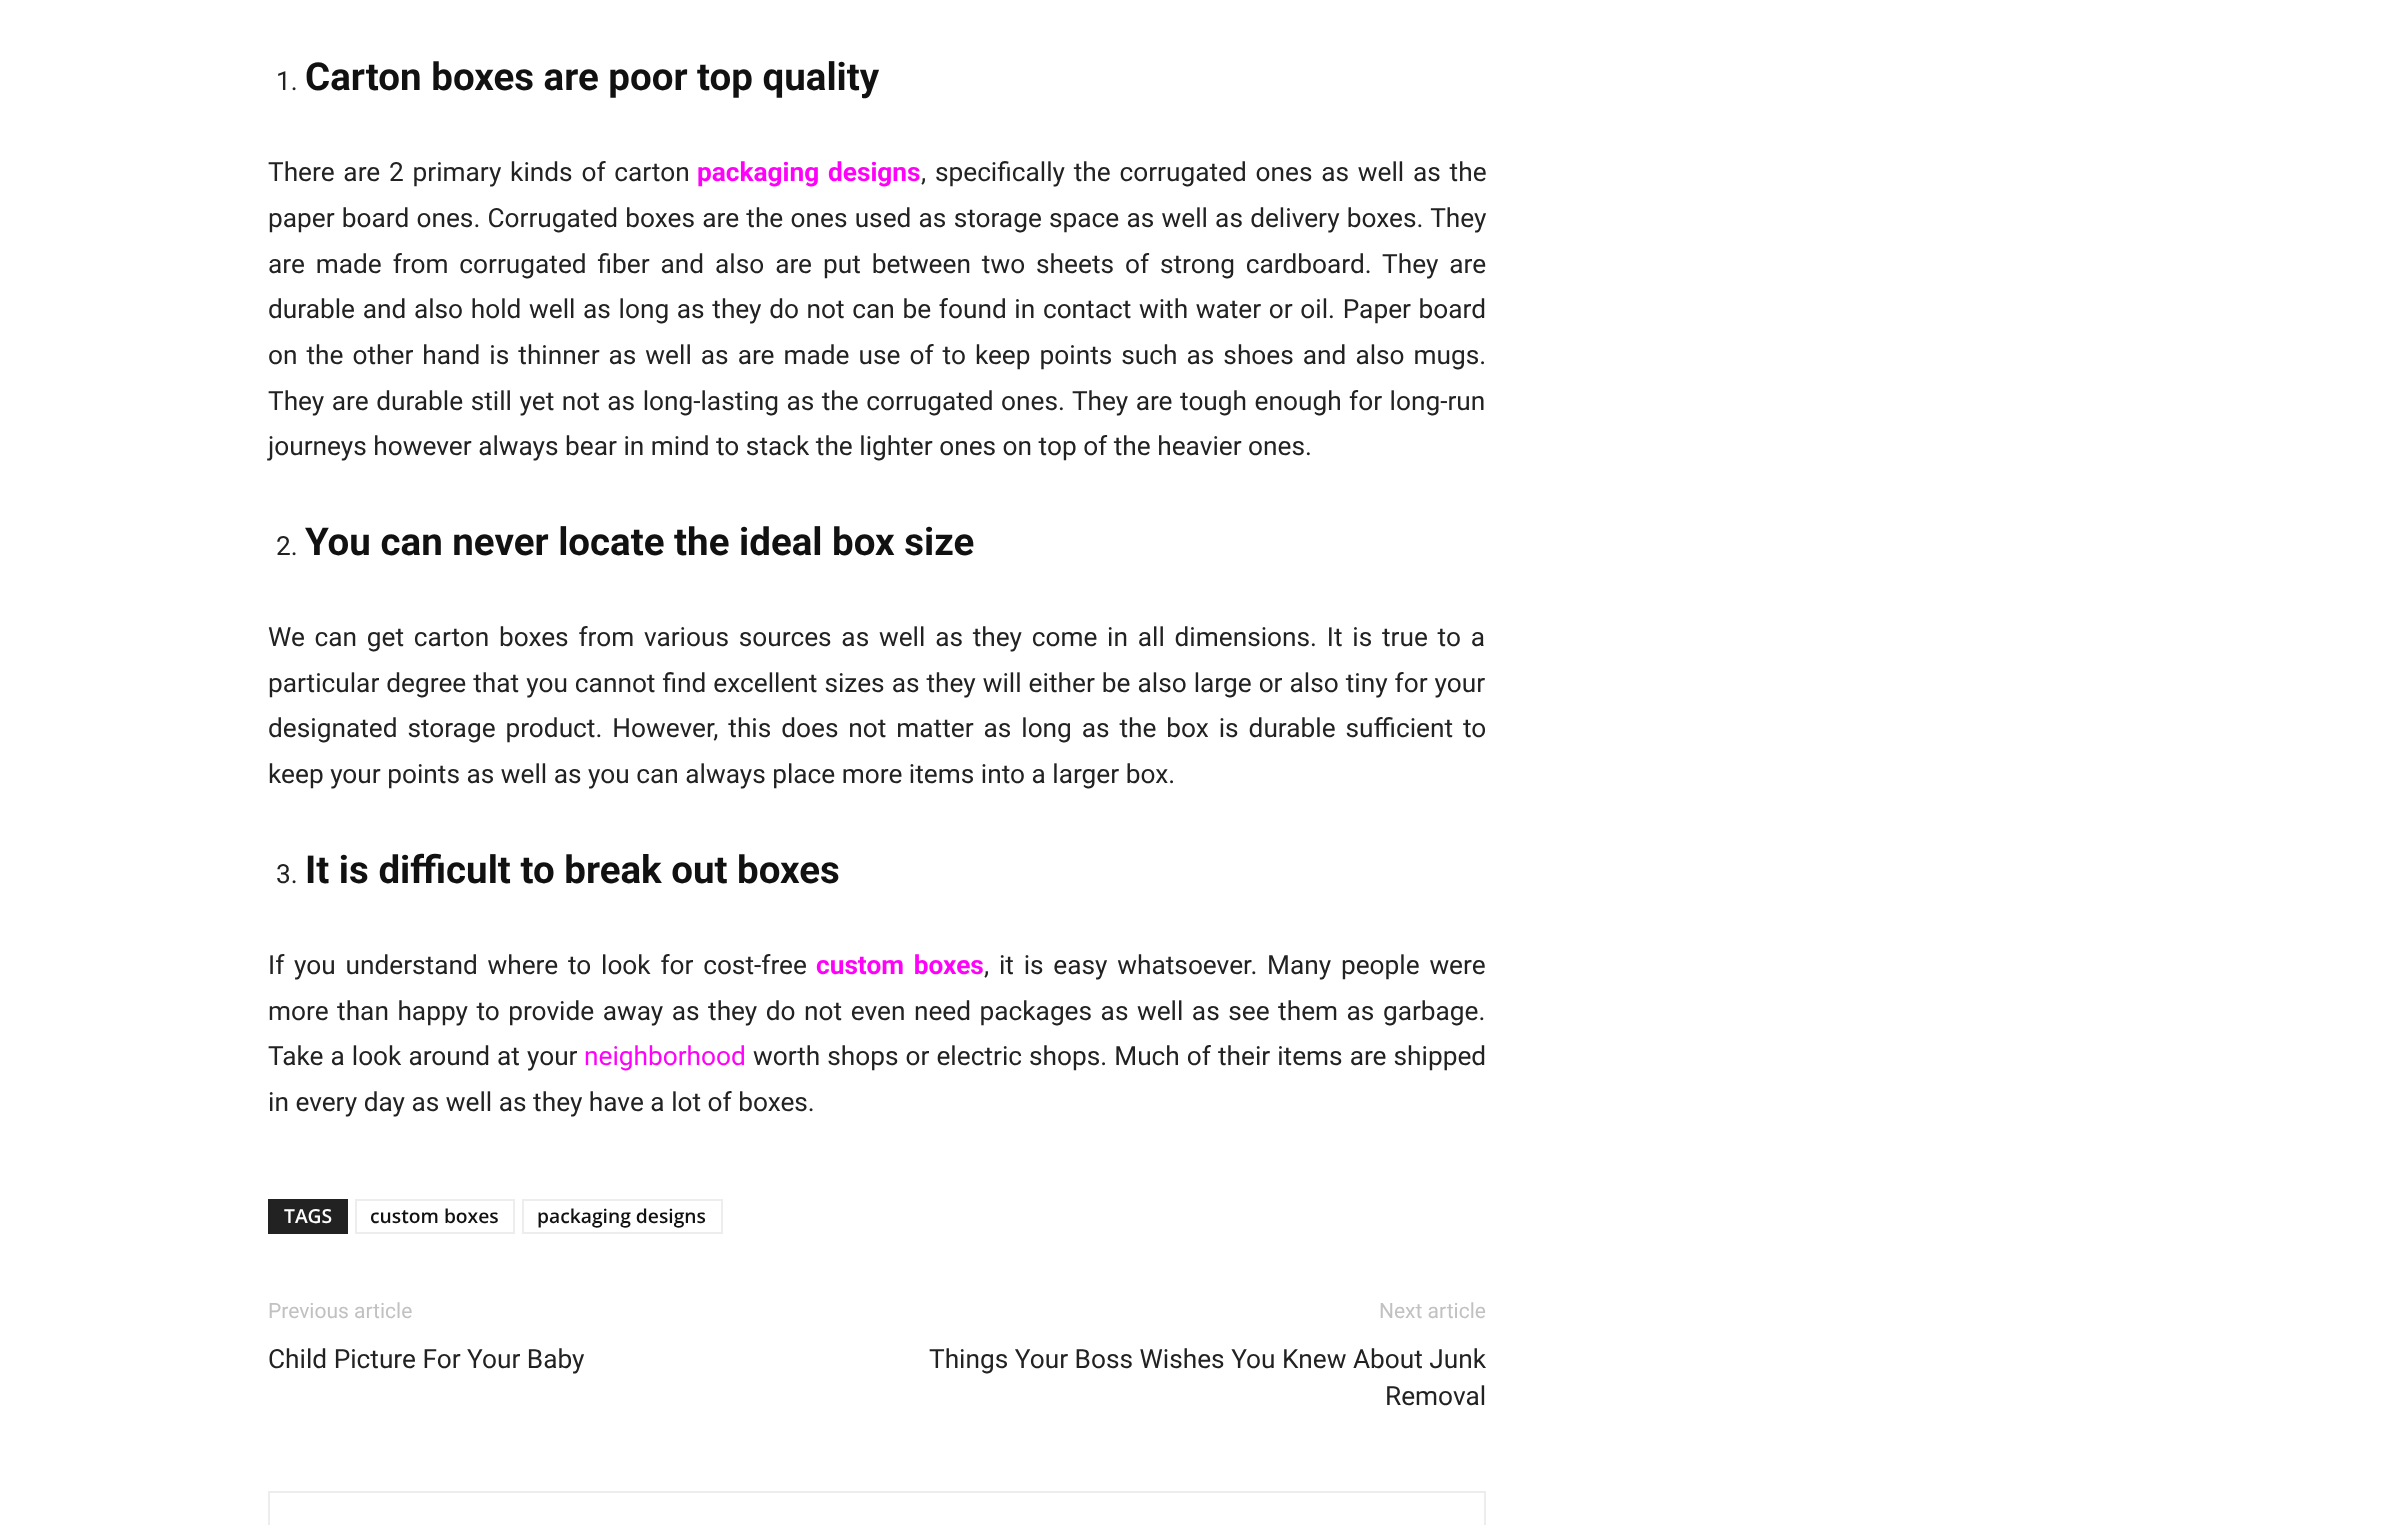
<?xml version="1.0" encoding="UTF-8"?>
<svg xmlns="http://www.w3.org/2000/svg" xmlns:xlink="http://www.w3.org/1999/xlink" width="2403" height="1525">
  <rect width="100%" height="100%" fill="#ffffff" />
  <rect x="268" y="1199" width="80" height="35" fill="#222222" />
  <rect x="356" y="1200" width="158" height="33" fill="none" stroke="#ededed" stroke-width="2" />
  <rect x="523" y="1200" width="199" height="33" fill="none" stroke="#ededed" stroke-width="2" />
  <rect x="269" y="1492" width="1216" height="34" fill="none" stroke="#ededed" stroke-width="2" />
  <text x="276" y="90" style="font-family: Roboto; font-size: 26.25px; fill: #222222">1.</text>
  <text x="305" y="90" style="font-family: Roboto; font-size: 38.5px; font-weight: bold; fill: #111111">Carton boxes are poor top quality</text>
  <text x="268" y="181" word-spacing="2.25" style="font-family: Roboto; font-size: 26.25px; fill: #222222">There are 2 primary kinds of carton</text>
  <text x="697" y="181" word-spacing="2.25" style="font-family: Roboto; font-size: 26.25px; font-weight: bold; fill: #ff00fa">packaging designs</text>
  <text x="921" y="181" word-spacing="2.25" style="font-family: Roboto; font-size: 26.25px; fill: #222222">, specifically the corrugated ones as well as the</text>
  <text x="268" y="227" word-spacing="0.7" style="font-family: Roboto; font-size: 26.25px; fill: #222222">paper board ones. Corrugated boxes are the ones used as storage space as well as delivery boxes. They</text>
  <text x="268" y="273" word-spacing="4.4" style="font-family: Roboto; font-size: 26.25px; fill: #222222">are made from corrugated fiber and also are put between two sheets of strong cardboard. They are</text>
  <text x="268" y="318" word-spacing="1.15" style="font-family: Roboto; font-size: 26.25px; fill: #222222">durable and also hold well as long as they do not can be found in contact with water or oil. Paper board</text>
  <text x="268" y="364" word-spacing="2.5" style="font-family: Roboto; font-size: 26.25px; fill: #222222">on the other hand is thinner as well as are made use of to keep points such as shoes and also mugs.</text>
  <text x="268" y="410" word-spacing="1" style="font-family: Roboto; font-size: 26.25px; fill: #222222">They are durable still yet not as long-lasting as the corrugated ones. They are tough enough for long-run</text>
  <text x="268" y="455" style="font-family: Roboto; font-size: 26.25px; fill: #222222">journeys however always bear in mind to stack the lighter ones on top of the heavier ones.</text>
  <text x="276" y="555" style="font-family: Roboto; font-size: 26.25px; fill: #222222">2.</text>
  <text x="305" y="555" style="font-family: Roboto; font-size: 38.5px; font-weight: bold; fill: #111111">You can never locate the ideal box size</text>
  <text x="268" y="646" word-spacing="3.25" style="font-family: Roboto; font-size: 26.25px; fill: #222222">We can get carton boxes from various sources as well as they come in all dimensions. It is true to a</text>
  <text x="268" y="692" word-spacing="0.5" style="font-family: Roboto; font-size: 26.25px; fill: #222222">particular degree that you cannot find excellent sizes as they will either be also large or also tiny for your</text>
  <text x="268" y="737" word-spacing="3.4" style="font-family: Roboto; font-size: 26.25px; fill: #222222">designated storage product. However, this does not matter as long as the box is durable sufficient to</text>
  <text x="268" y="783" style="font-family: Roboto; font-size: 26.25px; fill: #222222">keep your points as well as you can always place more items into a larger box.</text>
  <text x="276" y="883" style="font-family: Roboto; font-size: 26.25px; fill: #222222">3.</text>
  <text x="305" y="883" style="font-family: Roboto; font-size: 38.5px; font-weight: bold; fill: #111111">It is difficult to break out boxes</text>
  <text x="268" y="974" word-spacing="3.25" style="font-family: Roboto; font-size: 26.25px; fill: #222222">If you understand where to look for cost-free</text>
  <text x="816" y="974" word-spacing="3.25" style="font-family: Roboto; font-size: 26.25px; font-weight: bold; fill: #ff00fa">custom boxes</text>
  <text x="984" y="974" word-spacing="3.25" style="font-family: Roboto; font-size: 26.25px; fill: #222222">, it is easy whatsoever. Many people were</text>
  <text x="268" y="1020" word-spacing="2" style="font-family: Roboto; font-size: 26.25px; fill: #222222">more than happy to provide away as they do not even need packages as well as see them as garbage.</text>
  <text x="268" y="1065" word-spacing="0.5" style="font-family: Roboto; font-size: 26.25px; fill: #222222">Take a look around at your</text>
  <text x="584" y="1065" style="font-family: Roboto; font-size: 26.25px; fill: #ff00fa">neighborhood</text>
  <text x="753" y="1065" word-spacing="0.5" style="font-family: Roboto; font-size: 26.25px; fill: #222222">worth shops or electric shops. Much of their items are shipped</text>
  <text x="268" y="1111" style="font-family: Roboto; font-size: 26.25px; fill: #222222">in every day as well as they have a lot of boxes.</text>
  <text x="284" y="1223" style="font-family: Open Sans; font-size: 19.25px; font-weight: 600; fill: #ffffff">TAGS</text>
  <text x="370" y="1223" style="font-family: Open Sans; font-size: 19.25px; font-weight: 600; fill: #111111">custom boxes</text>
  <text x="537" y="1223" style="font-family: Open Sans; font-size: 19.25px; font-weight: 600; fill: #111111">packaging designs</text>
  <text x="268" y="1318" style="font-family: Roboto; font-size: 21px; fill: #c1c1c1">Previous article</text>
  <text x="268" y="1368" style="font-family: Roboto; font-size: 26.25px; fill: #222222">Child Picture For Your Baby</text>
  <text x="1379" y="1318" style="font-family: Roboto; font-size: 21px; fill: #c1c1c1">Next article</text>
  <text x="929" y="1368" style="font-family: Roboto; font-size: 26.25px; fill: #222222">Things Your Boss Wishes You Knew About Junk</text>
  <text x="1385" y="1405" style="font-family: Roboto; font-size: 26.25px; fill: #222222">Removal</text>
</svg>
